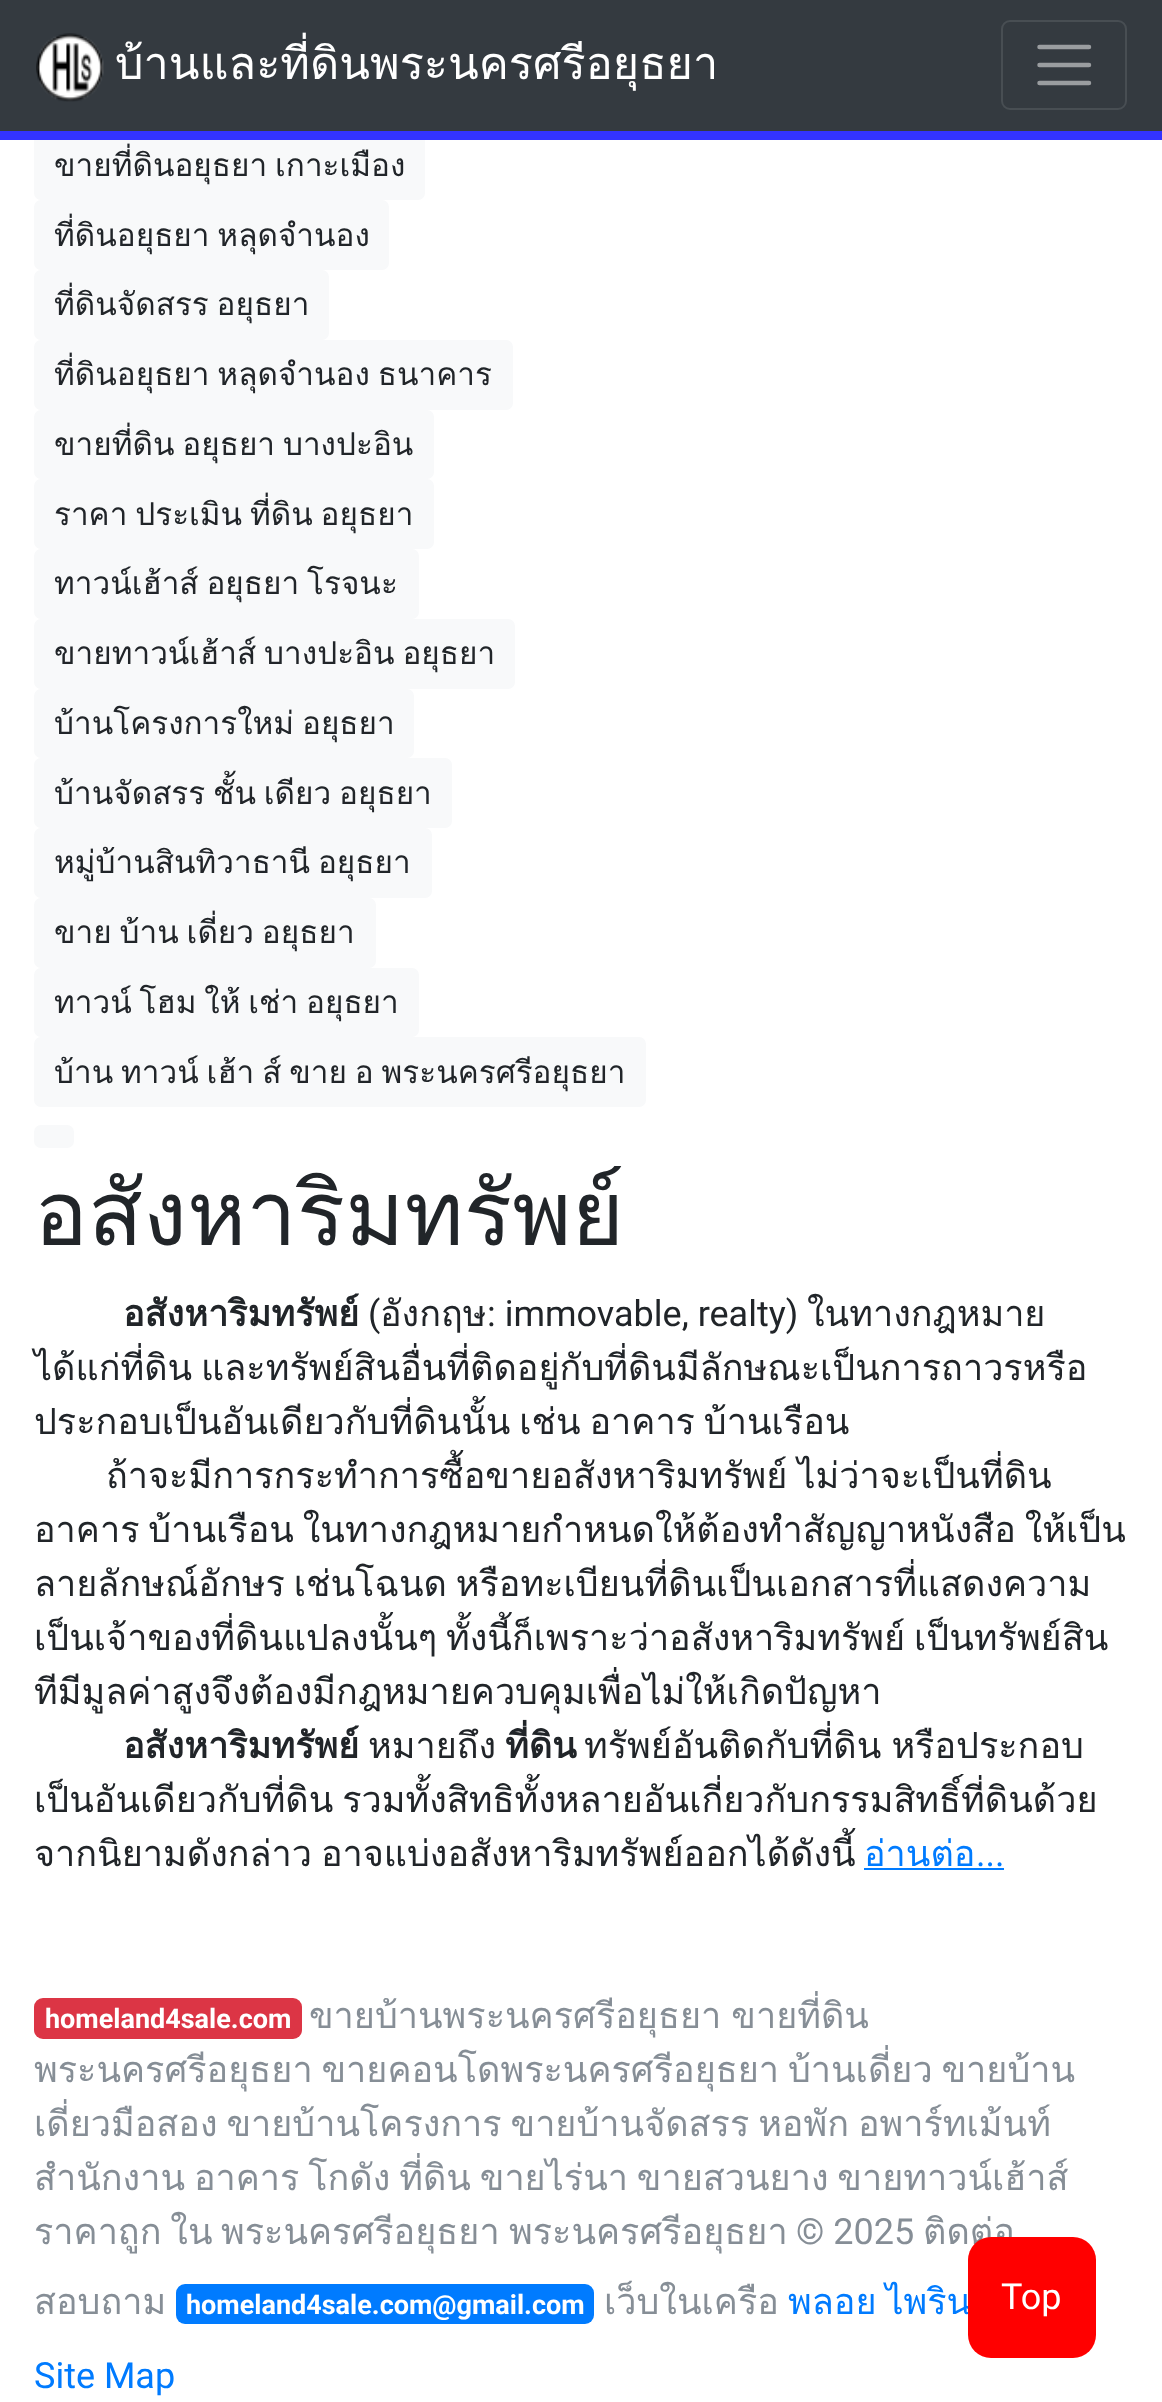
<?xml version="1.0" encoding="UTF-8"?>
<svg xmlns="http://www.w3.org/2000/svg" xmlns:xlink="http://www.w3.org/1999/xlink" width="1162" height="2402">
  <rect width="100%" height="100%" fill="#ffffff" />
  <rect width="1162" height="131" fill="#343a40" />
  <rect x="34" y="131" width="391" height="69" rx="7" fill="#f8f9fa" />
  <rect y="131" width="1162" height="9" fill="#3333ff" />
  <image x="36" y="33" width="68" height="69" xlink:href="image1.png" />
  <rect x="1002" y="21" width="124" height="88" rx="8" fill="none" stroke="#484e53" stroke-width="2" />
  <path d="M 1039.5 47 h 49.5 m -49.5 18 h 49.5 m -49.5 18 h 49.5" fill="none" stroke="#9a9da0" stroke-width="4.5" stroke-linecap="round" />
  <rect x="34" y="200" width="355" height="70" rx="7" fill="#f8f9fa" />
  <rect x="34" y="270" width="295" height="70" rx="7" fill="#f8f9fa" />
  <rect x="34" y="340" width="479" height="70" rx="7" fill="#f8f9fa" />
  <rect x="34" y="410" width="400" height="69" rx="7" fill="#f8f9fa" />
  <rect x="34" y="479" width="400" height="70" rx="7" fill="#f8f9fa" />
  <rect x="34" y="549" width="385" height="70" rx="7" fill="#f8f9fa" />
  <rect x="34" y="619" width="481" height="70" rx="7" fill="#f8f9fa" />
  <rect x="34" y="689" width="380" height="69" rx="7" fill="#f8f9fa" />
  <rect x="34" y="758" width="418" height="70" rx="7" fill="#f8f9fa" />
  <rect x="34" y="828" width="398" height="70" rx="7" fill="#f8f9fa" />
  <rect x="34" y="898" width="342" height="70" rx="7" fill="#f8f9fa" />
  <rect x="34" y="968" width="385" height="69" rx="7" fill="#f8f9fa" />
  <rect x="34" y="1037" width="612" height="70" rx="7" fill="#f8f9fa" />
  <rect x="34" y="1125" width="40" height="23" rx="7" fill="#f8f9fa" />
  <rect x="864" y="1868" width="140" height="2" fill="#007bff" />
  <rect x="34" y="1998" width="268" height="41" rx="9" fill="#dc3545" />
  <rect x="176" y="2284" width="418" height="40" rx="9" fill="#007bff" />
  <text x="115" y="79" style="font-family: Loma; font-size: 45px; fill: #ffffff">บ้านและที่ดินพระนครศรีอยุธยา</text>
  <text x="54" y="176" word-spacing="-2.75" style="font-family: Loma; font-size: 31.5px; fill: #212529">ขายที่ดินอยุธยา เกาะเมือง</text>
  <text x="54" y="246" word-spacing="-2.75" style="font-family: Loma; font-size: 31.5px; fill: #212529">ที่ดินอยุธยา หลุดจํานอง</text>
  <text x="54" y="315" word-spacing="-2.75" style="font-family: Loma; font-size: 31.5px; fill: #212529">ที่ดินจัดสรร อยุธยา</text>
  <text x="54" y="385" word-spacing="-2.75" style="font-family: Loma; font-size: 31.5px; fill: #212529">ที่ดินอยุธยา หลุดจํานอง ธนาคาร</text>
  <text x="54" y="455" word-spacing="-2.75" style="font-family: Loma; font-size: 31.5px; fill: #212529">ขายที่ดิน อยุธยา บางปะอิน</text>
  <text x="54" y="525" word-spacing="-2.75" style="font-family: Loma; font-size: 31.5px; fill: #212529">ราคา ประเมิน ที่ดิน อยุธยา</text>
  <text x="54" y="594" word-spacing="-2.75" style="font-family: Loma; font-size: 31.5px; fill: #212529">ทาวน์เฮ้าส์ อยุธยา โรจนะ</text>
  <text x="54" y="664" word-spacing="-2.75" style="font-family: Loma; font-size: 31.5px; fill: #212529">ขายทาวน์เฮ้าส์ บางปะอิน อยุธยา</text>
  <text x="54" y="734" word-spacing="-2.75" style="font-family: Loma; font-size: 31.5px; fill: #212529">บ้านโครงการใหม่ อยุธยา</text>
  <text x="54" y="804" word-spacing="-2.75" style="font-family: Loma; font-size: 31.5px; fill: #212529">บ้านจัดสรร ชั้น เดียว อยุธยา</text>
  <text x="54" y="873" word-spacing="-2.75" style="font-family: Loma; font-size: 31.5px; fill: #212529">หมู่บ้านสินทิวาธานี อยุธยา</text>
  <text x="54" y="943" word-spacing="-2.75" style="font-family: Loma; font-size: 31.5px; fill: #212529">ขาย บ้าน เดี่ยว อยุธยา</text>
  <text x="54" y="1013" word-spacing="-2.75" style="font-family: Loma; font-size: 31.5px; fill: #212529">ทาวน์ โฮม ให้ เช่า อยุธยา</text>
  <text x="54" y="1083" word-spacing="-2.75" style="font-family: Loma; font-size: 31.5px; fill: #212529">บ้าน ทาวน์ เฮ้า ส์ ขาย อ พระนครศรีอยุธยา</text>
  <text x="34" y="1245" style="font-family: Loma; font-size: 90px; fill: #212529">อสังหาริมทรัพย์</text>
  <text x="123" y="1326" style="font-family: Loma; font-size: 36px; font-weight: bold; fill: #212529">อสังหาริมทรัพย์</text>
  <text x="807" y="1326" style="font-family: Loma; font-size: 36px; fill: #212529">ในทางกฎหมาย</text>
  <text x="368" y="1326" style="font-family: Roboto; font-size: 36px; fill: #212529">(</text>
  <text x="380" y="1326" style="font-family: Loma; font-size: 36px; fill: #212529">อังกฤษ</text>
  <text x="487" y="1326" style="font-family: Roboto; font-size: 36px; fill: #212529">: immovable, realty)</text>
  <text x="34" y="1380" word-spacing="-3.25" style="font-family: Loma; font-size: 36px; fill: #212529">ได้แก่ที่ดิน และทรัพย์สินอื่นที่ติดอยู่กับที่ดินมีลักษณะเป็นการถาวรหรือ</text>
  <text x="34" y="1434" word-spacing="-3.25" style="font-family: Loma; font-size: 36px; fill: #212529">ประกอบเป็นอันเดียวกับที่ดินนั้น เช่น อาคาร บ้านเรือน</text>
  <text x="106" y="1488" word-spacing="-2" style="font-family: Loma; font-size: 36px; fill: #212529">ถ้าจะมีการกระทำการซื้อขายอสังหาริมทรัพย์ ไม่ว่าจะเป็นที่ดิน</text>
  <text x="34" y="1542" word-spacing="-3.25" style="font-family: Loma; font-size: 36px; fill: #212529">อาคาร บ้านเรือน ในทางกฎหมายกำหนดให้ต้องทำสัญญาหนังสือ ให้เป็น</text>
  <text x="34" y="1596" word-spacing="-3.25" style="font-family: Loma; font-size: 36px; fill: #212529">ลายลักษณ์อักษร เช่นโฉนด หรือทะเบียนที่ดินเป็นเอกสารที่แสดงความ</text>
  <text x="34" y="1650" word-spacing="-3.25" style="font-family: Loma; font-size: 36px; fill: #212529">เป็นเจ้าของที่ดินแปลงนั้นๆ ทั้งนี้ก็เพราะว่าอสังหาริมทรัพย์ เป็นทรัพย์สิน</text>
  <text x="34" y="1704" style="font-family: Loma; font-size: 36px; fill: #212529">ทีมีมูลค่าสูงจึงต้องมีกฎหมายควบคุมเพื่อไม่ให้เกิดปัญหา</text>
  <text x="123" y="1758" style="font-family: Loma; font-size: 36px; font-weight: bold; fill: #212529">อสังหาริมทรัพย์</text>
  <text x="368" y="1758" style="font-family: Loma; font-size: 36px; fill: #212529">หมายถึง</text>
  <text x="505" y="1758" style="font-family: Loma; font-size: 36px; font-weight: bold; fill: #212529">ที่ดิน</text>
  <text x="584" y="1758" word-spacing="-2" style="font-family: Loma; font-size: 36px; fill: #212529">ทรัพย์อันติดกับที่ดิน หรือประกอบ</text>
  <text x="34" y="1812" word-spacing="-3.25" style="font-family: Loma; font-size: 36px; fill: #212529">เป็นอันเดียวกับที่ดิน รวมทั้งสิทธิทั้งหลายอันเกี่ยวกับกรรมสิทธิ์ที่ดินด้วย</text>
  <text x="34" y="1866" word-spacing="-3.25" style="font-family: Loma; font-size: 36px; fill: #212529">จากนิยามดังกล่าว อาจแบ่งอสังหาริมทรัพย์ออกได้ดังนี้</text>
  <text x="864" y="1866" style="font-family: Loma; font-size: 36px; fill: #007bff">อ่านต่อ</text>
  <text x="976" y="1866" style="font-family: Roboto; font-size: 36px; fill: #007bff">...</text>
  <text x="45" y="2028" style="font-family: Roboto; font-size: 27px; font-weight: bold; fill: #ffffff">homeland4sale.com</text>
  <text x="309" y="2028" word-spacing="-2" style="font-family: Loma; font-size: 36px; fill: #868e96">ขายบ้านพระนครศรีอยุธยา ขายที่ดิน</text>
  <text x="34" y="2082" word-spacing="-3.25" style="font-family: Loma; font-size: 36px; fill: #868e96">พระนครศรีอยุธยา ขายคอนโดพระนครศรีอยุธยา บ้านเดี่ยว ขายบ้าน</text>
  <text x="34" y="2136" word-spacing="-3.25" style="font-family: Loma; font-size: 36px; fill: #868e96">เดี่ยวมือสอง ขายบ้านโครงการ ขายบ้านจัดสรร หอพัก อพาร์ทเม้นท์</text>
  <text x="34" y="2190" word-spacing="-3.25" style="font-family: Loma; font-size: 36px; fill: #868e96">สำนักงาน อาคาร โกดัง ที่ดิน ขายไร่นา ขายสวนยาง ขายทาวน์เฮ้าส์</text>
  <text x="34" y="2244" word-spacing="-3.25" style="font-family: Loma; font-size: 36px; fill: #868e96">ราคาถูก ใน</text>
  <text x="221" y="2244" style="font-family: Loma; font-size: 36px; fill: #868e96">พระนครศรีอยุธยา</text>
  <text x="509" y="2244" style="font-family: Loma; font-size: 36px; fill: #868e96">พระนครศรีอยุธยา</text>
  <text x="796" y="2244" style="font-family: Roboto; font-size: 36px; fill: #868e96">© 2025</text>
  <text x="923" y="2244" style="font-family: Loma; font-size: 36px; fill: #868e96">ติดต่อ</text>
  <text x="34" y="2314" style="font-family: Loma; font-size: 36px; fill: #868e96">สอบถาม</text>
  <text x="186" y="2314" style="font-family: Roboto; font-size: 27px; font-weight: bold; fill: #ffffff">homeland4sale.com@gmail.com</text>
  <text x="604" y="2314" style="font-family: Loma; font-size: 36px; fill: #868e96">เว็บในเครือ</text>
  <text x="788" y="2314" word-spacing="-3.25" style="font-family: Loma; font-size: 36px; fill: #007bff">พลอย ไพริน</text>
  <text x="34" y="2388" style="font-family: Roboto; font-size: 36px; fill: #007bff">Site Map</text>
  <rect x="968" y="2237" width="128" height="121" rx="23" fill="#ff0000" />
  <text x="1001" y="2309" style="font-family: Roboto; font-size: 36px; fill: #ffffff">Top</text>
</svg>
